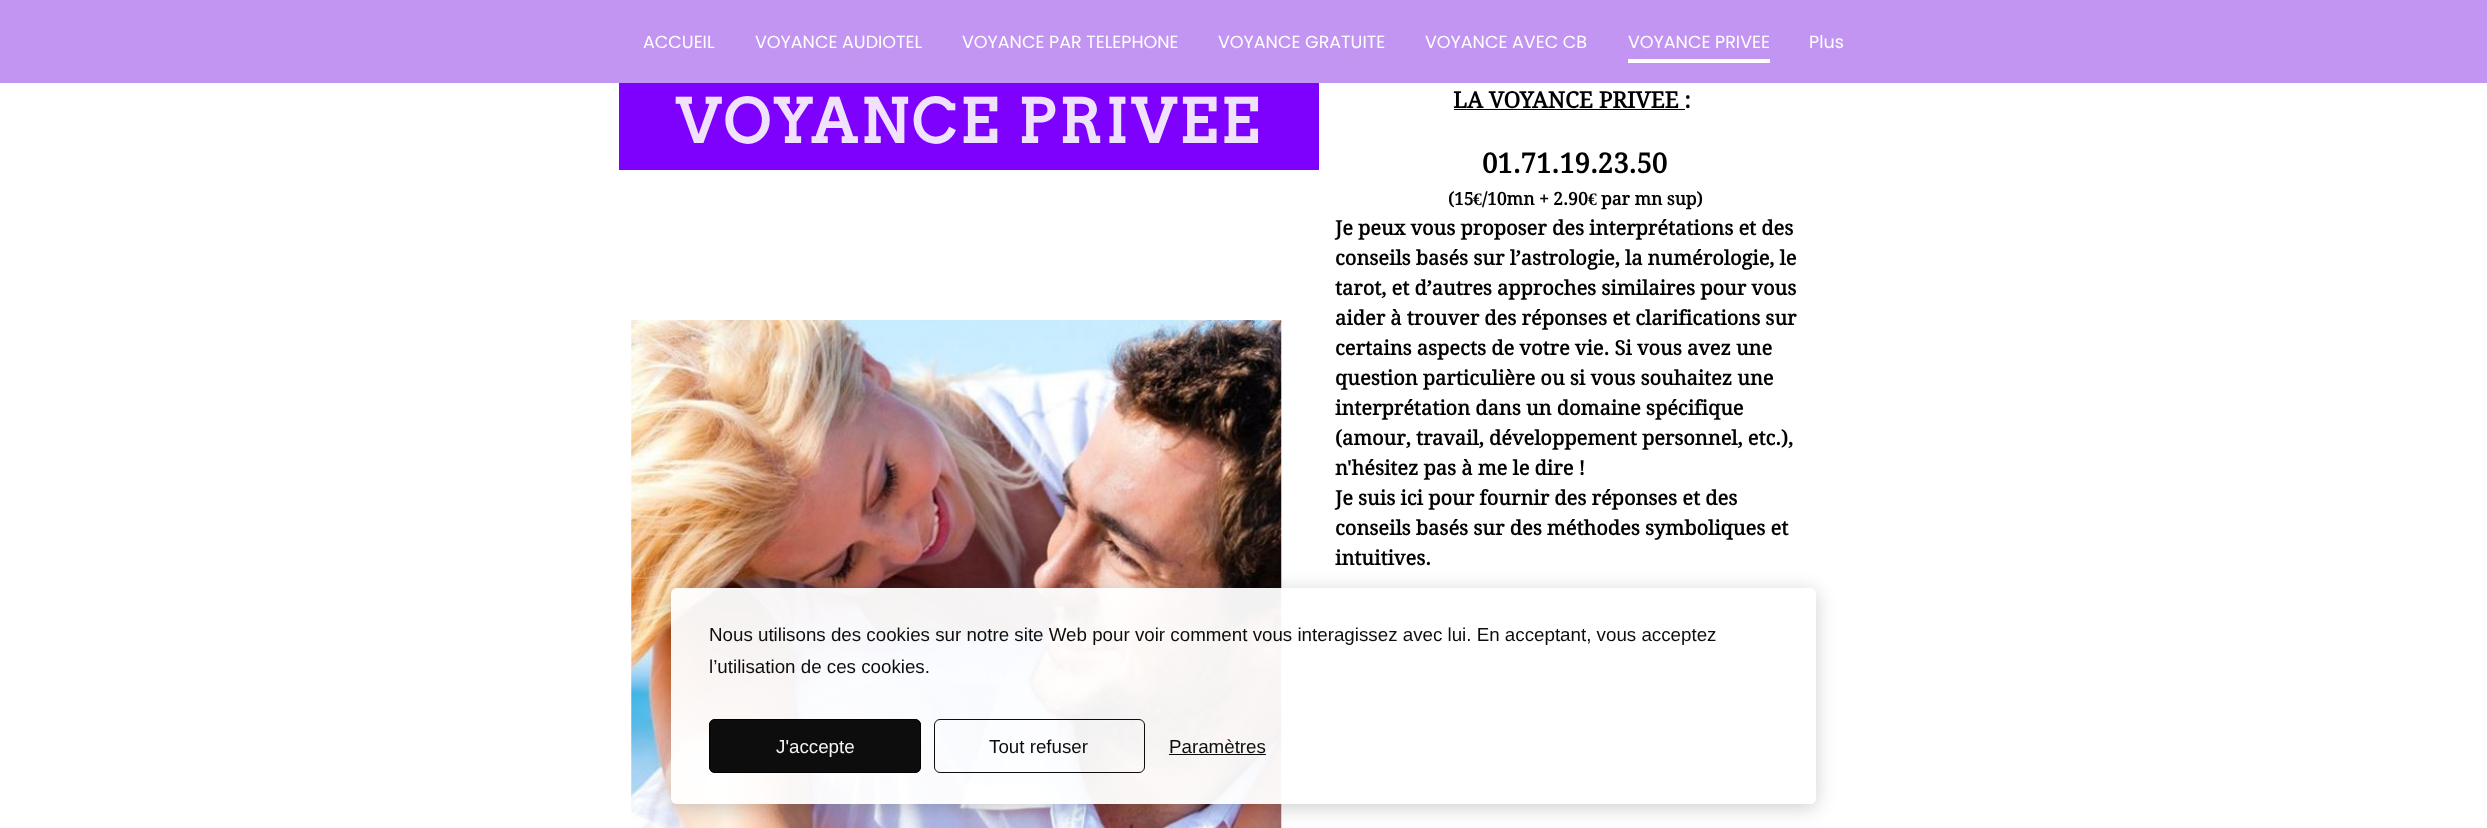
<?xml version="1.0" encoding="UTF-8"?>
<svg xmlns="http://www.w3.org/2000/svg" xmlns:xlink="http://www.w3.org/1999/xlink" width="2487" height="828">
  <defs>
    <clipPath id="clip1"><path d="M 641 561 h 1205 v 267 h -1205 z m 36 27 h 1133 c 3.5 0 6 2.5 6 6 v 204 c 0 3.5 -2.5 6 -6 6 h -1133 c -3.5 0 -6 -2.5 -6 -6 v -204 c 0 -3.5 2.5 -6 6 -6 z" clip-rule="evenodd" /></clipPath>
  </defs>
  <rect width="100%" height="100%" fill="#ffffff" />
  <rect width="2487" height="83" fill="#c395f2" />
  <rect x="1628" y="59" width="142" height="4" fill="#ffffff" />
  <rect x="619" y="83" width="700" height="87" fill="#7e01fd" />
  <rect x="1454" y="109" width="231" height="1" fill="#000000" />
  <image x="631" y="320" width="651" height="508" xlink:href="image1.png" />
  <g clip-path="url(#clip1)">
    <rect x="671" y="591" width="1145" height="217" rx="6" fill="#000000" fill-opacity="0.19" filter="blur(9.5px)" />
  </g>
  <rect x="671" y="588" width="1145" height="216" rx="6" fill="#ffffff" fill-opacity="0.95" />
  <rect x="709" y="719" width="212" height="54" rx="6" fill="#000000" fill-opacity="0.95" />
  <rect x="709.5" y="719.5" width="211" height="53" rx="5.5" fill="none" stroke="#000000" stroke-opacity="0.95" />
  <rect x="934.5" y="719.5" width="210" height="53" rx="5.5" fill="none" stroke="#000000" stroke-opacity="0.95" />
  <rect x="1169" y="754" width="97" height="1" fill="#000000" fill-opacity="0.95" />
  <text x="643" y="48" style="font-family: Poppins; font-size: 17.5px; fill: #ffffff">ACCUEIL</text>
  <text x="755" y="48" style="font-family: Poppins; font-size: 17.5px; fill: #ffffff">VOYANCE AUDIOTEL</text>
  <text x="962" y="48" style="font-family: Poppins; font-size: 17.5px; fill: #ffffff">VOYANCE PAR TELEPHONE</text>
  <text x="1218" y="48" style="font-family: Poppins; font-size: 17.5px; fill: #ffffff">VOYANCE GRATUITE</text>
  <text x="1425" y="48" style="font-family: Poppins; font-size: 17.5px; fill: #ffffff">VOYANCE AVEC CB</text>
  <text x="1628" y="48" style="font-family: Poppins; font-size: 17.5px; fill: #ffffff">VOYANCE PRIVEE</text>
  <text x="1809" y="48" style="font-family: Poppins; font-size: 17.5px; fill: #ffffff">Plus</text>
  <text x="676" y="143" style="font-family: Arvo; font-size: 60px; font-weight: bold; letter-spacing: 3.75px; fill: #efe2fa">VOYANCE PRIVEE</text>
  <text x="1453" y="108" style="font-family: Droid Serif; font-size: 22.5px; font-weight: bold; fill: #000000">LA VOYANCE PRIVEE :</text>
  <text x="1482" y="173" style="font-family: Droid Serif; font-size: 27.5px; font-weight: bold; fill: #000000">01.71.19.23.50</text>
  <text x="1448" y="205" style="font-family: Droid Serif; font-size: 17.5px; font-weight: bold; fill: #000000">(15</text>
  <text x="1473" y="205" style="font-family: Liberation Serif; font-size: 17.5px; font-weight: bold; fill: #000000">€</text>
  <text x="1482" y="205" style="font-family: Droid Serif; font-size: 17.5px; font-weight: bold; fill: #000000">/10mn + 2.90</text>
  <text x="1588" y="205" style="font-family: Liberation Serif; font-size: 17.5px; font-weight: bold; fill: #000000">€</text>
  <text x="1601" y="205" style="font-family: Droid Serif; font-size: 17.5px; font-weight: bold; fill: #000000">par mn sup)</text>
  <text x="1335" y="235" style="font-family: Droid Serif; font-size: 20px; font-weight: bold; fill: #000000">Je peux vous proposer des interprétations et des</text>
  <text x="1335" y="265" style="font-family: Droid Serif; font-size: 20px; font-weight: bold; fill: #000000">conseils basés sur l’astrologie, la numérologie, le</text>
  <text x="1335" y="295" style="font-family: Droid Serif; font-size: 20px; font-weight: bold; fill: #000000">tarot, et d’autres approches similaires pour vous</text>
  <text x="1335" y="325" style="font-family: Droid Serif; font-size: 20px; font-weight: bold; fill: #000000">aider à trouver des réponses et clarifications sur</text>
  <text x="1335" y="355" style="font-family: Droid Serif; font-size: 20px; font-weight: bold; fill: #000000">certains aspects de votre vie. Si vous avez une</text>
  <text x="1335" y="385" style="font-family: Droid Serif; font-size: 20px; font-weight: bold; fill: #000000">question particulière ou si vous souhaitez une</text>
  <text x="1335" y="415" style="font-family: Droid Serif; font-size: 20px; font-weight: bold; fill: #000000">interprétation dans un domaine spécifique</text>
  <text x="1335" y="445" style="font-family: Droid Serif; font-size: 20px; font-weight: bold; fill: #000000">(amour, travail, développement personnel, etc.),</text>
  <text x="1335" y="475" style="font-family: Droid Serif; font-size: 20px; font-weight: bold; fill: #000000">n'hésitez pas à me le dire !</text>
  <text x="1335" y="505" style="font-family: Droid Serif; font-size: 20px; font-weight: bold; fill: #000000">Je suis ici pour fournir des réponses et des</text>
  <text x="1335" y="535" style="font-family: Droid Serif; font-size: 20px; font-weight: bold; fill: #000000">conseils basés sur des méthodes symboliques et</text>
  <text x="1335" y="565" style="font-family: Droid Serif; font-size: 20px; font-weight: bold; fill: #000000">intuitives.</text>
  <text x="709" y="641" style="font-family: Liberation Sans; font-size: 18.75px; fill: #0d0d0d">Nous utilisons des cookies sur notre site Web pour voir comment vous interagissez avec lui. En acceptant, vous acceptez</text>
  <text x="709" y="673" style="font-family: Liberation Sans; font-size: 18.75px; fill: #0d0d0d">l’utilisation de ces cookies.</text>
  <text x="776" y="753" style="font-family: Liberation Sans; font-size: 18.75px; fill: #f3f3f3">J'accepte</text>
  <text x="989" y="753" style="font-family: Liberation Sans; font-size: 18.75px; fill: #0d0d0d">Tout refuser</text>
  <text x="1169" y="753" style="font-family: Liberation Sans; font-size: 18.75px; fill: #0d0d0d">Paramètres</text>
</svg>
